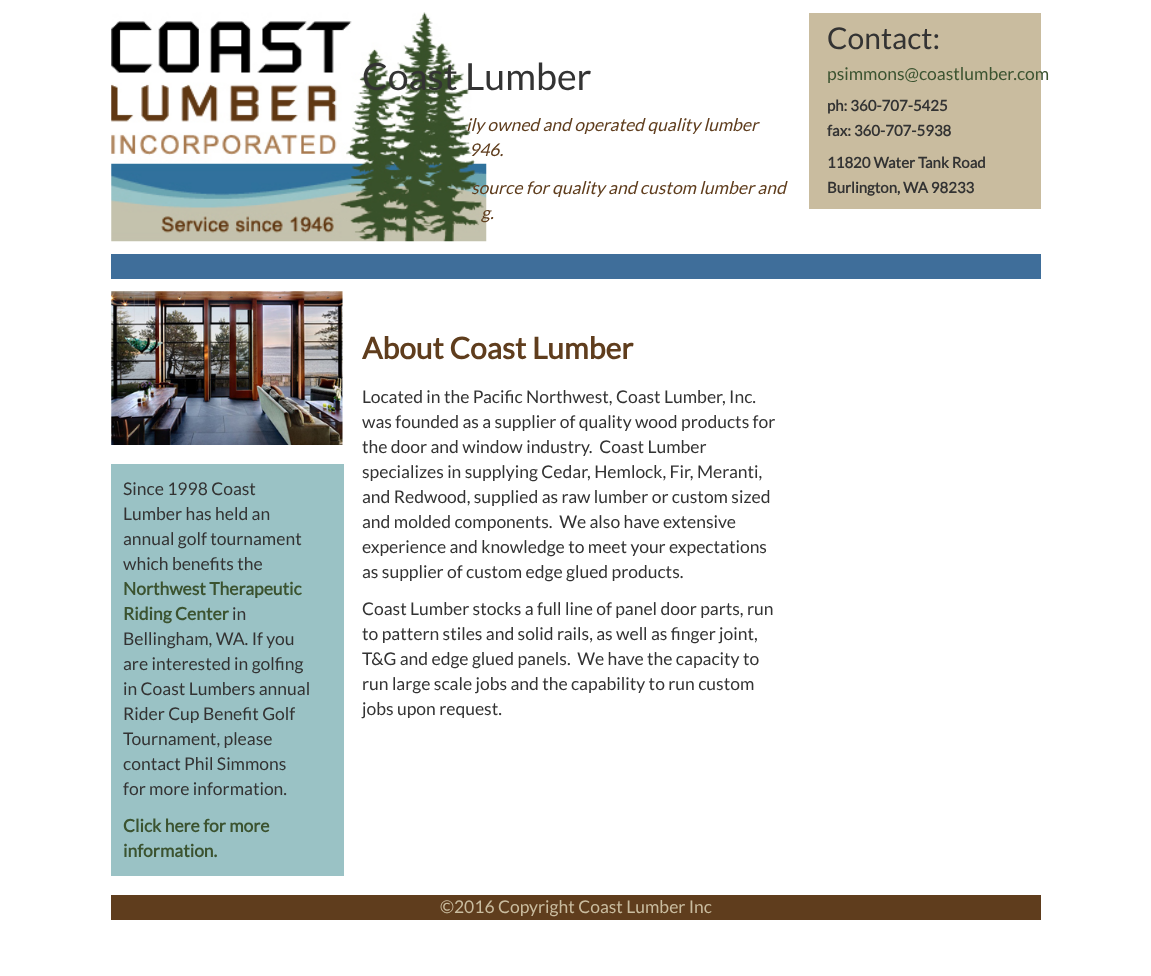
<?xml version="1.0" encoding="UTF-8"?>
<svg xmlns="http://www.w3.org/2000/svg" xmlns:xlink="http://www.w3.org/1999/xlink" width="1151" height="976">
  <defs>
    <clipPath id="clip1"><path d="M 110 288 h 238 v 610 h -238 z m 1 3 h 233 v 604 h -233 z" clip-rule="evenodd" /></clipPath>
  </defs>
  <rect width="100%" height="100%" fill="#ffffff" />
  <image x="111" y="12" width="376" height="230" xlink:href="image1.png" />
  <rect x="809" y="13" width="232" height="196" fill="#c9bc9f" />
  <rect x="111" y="254" width="930" height="25" fill="#3f6e9a" />
  <rect x="111" y="895" width="930" height="25" fill="#5f3d1d" />
  <g clip-path="url(#clip1)">
    <rect x="113" y="291" width="232" height="604" fill="#ffffff" filter="blur(0.5px)" />
  </g>
  <image x="111" y="291" width="232" height="154" xlink:href="image2.png" />
  <rect x="111" y="464" width="233" height="412" fill="#9ac2c5" />
  <text x="362" y="90" style="font-family: Lato; font-size: 37.5px; fill: #333333">Coast Lumber</text>
  <text x="466" y="131" style="font-family: Lato; font-size: 17.5px; font-style: italic; fill: #5f3d1d">ily owned and operated quality lumber</text>
  <text x="469" y="156" style="font-family: Lato; font-size: 17.5px; font-style: italic; fill: #5f3d1d">946.</text>
  <text x="471" y="194" style="font-family: Lato; font-size: 17.5px; font-style: italic; fill: #5f3d1d">source for quality and custom lumber and</text>
  <text x="481" y="219" style="font-family: Lato; font-size: 17.5px; font-style: italic; fill: #5f3d1d">g.</text>
  <text x="827" y="49" style="font-family: Lato; font-size: 30px; fill: #333333">Contact:</text>
  <text x="827" y="80" style="font-family: Lato; font-size: 17.5px; fill: #3b5330">psimmons@coastlumber.com</text>
  <text x="827" y="111" style="font-family: Lato; font-size: 15px; font-weight: bold; fill: #333333">ph: 360-707-5425</text>
  <text x="827" y="136" style="font-family: Lato; font-size: 15px; font-weight: bold; fill: #333333">fax: 360-707-5938</text>
  <text x="827" y="168" style="font-family: Lato; font-size: 15px; font-weight: bold; fill: #333333">11820 Water Tank Road</text>
  <text x="827" y="193" style="font-family: Lato; font-size: 15px; font-weight: bold; fill: #333333">Burlington, WA 98233</text>
  <text x="123" y="495" style="font-family: Lato; font-size: 17.5px; fill: #333333">Since 1998 Coast</text>
  <text x="123" y="520" style="font-family: Lato; font-size: 17.5px; fill: #333333">Lumber has held an</text>
  <text x="123" y="545" style="font-family: Lato; font-size: 17.5px; fill: #333333">annual golf tournament</text>
  <text x="123" y="570" style="font-family: Lato; font-size: 17.5px; fill: #333333">which benefits the</text>
  <text x="123" y="595" style="font-family: Lato; font-size: 17.5px; font-weight: bold; fill: #3b5330">Northwest Therapeutic</text>
  <text x="123" y="620" style="font-family: Lato; font-size: 17.5px; font-weight: bold; fill: #3b5330">Riding Center</text>
  <text x="232" y="620" style="font-family: Lato; font-size: 17.5px; fill: #333333">in</text>
  <text x="123" y="645" style="font-family: Lato; font-size: 17.5px; fill: #333333">Bellingham, WA. If you</text>
  <text x="123" y="670" style="font-family: Lato; font-size: 17.5px; fill: #333333">are interested in golfing</text>
  <text x="123" y="695" style="font-family: Lato; font-size: 17.5px; fill: #333333">in Coast Lumbers annual</text>
  <text x="123" y="720" style="font-family: Lato; font-size: 17.5px; fill: #333333">Rider Cup Benefit Golf</text>
  <text x="123" y="745" style="font-family: Lato; font-size: 17.5px; fill: #333333">Tournament, please</text>
  <text x="123" y="770" style="font-family: Lato; font-size: 17.5px; fill: #333333">contact Phil Simmons</text>
  <text x="123" y="795" style="font-family: Lato; font-size: 17.5px; fill: #333333">for more information.</text>
  <text x="123" y="832" style="font-family: Lato; font-size: 17.5px; font-weight: bold; fill: #3b5330">Click here for more</text>
  <text x="123" y="857" style="font-family: Lato; font-size: 17.5px; font-weight: bold; fill: #3b5330">information.</text>
  <text x="362" y="359" style="font-family: Lato; font-size: 30px; font-weight: bold; fill: #5f3d1d">About Coast Lumber</text>
  <text x="362" y="403" style="font-family: Lato; font-size: 17.5px; fill: #333333">Located in the Pacific Northwest, Coast Lumber, Inc.</text>
  <text x="362" y="428" style="font-family: Lato; font-size: 17.5px; fill: #333333">was founded as a supplier of quality wood products for</text>
  <text x="362" y="453" style="font-family: Lato; font-size: 17.5px; fill: #333333" xml:space="preserve">the door and window industry.  Coast Lumber</text>
  <text x="362" y="478" style="font-family: Lato; font-size: 17.5px; fill: #333333">specializes in supplying Cedar, Hemlock, Fir, Meranti,</text>
  <text x="362" y="503" style="font-family: Lato; font-size: 17.5px; fill: #333333">and Redwood, supplied as raw lumber or custom sized</text>
  <text x="362" y="528" style="font-family: Lato; font-size: 17.5px; fill: #333333" xml:space="preserve">and molded components.  We also have extensive</text>
  <text x="362" y="553" style="font-family: Lato; font-size: 17.5px; fill: #333333">experience and knowledge to meet your expectations</text>
  <text x="362" y="578" style="font-family: Lato; font-size: 17.5px; fill: #333333">as supplier of custom edge glued products.</text>
  <text x="362" y="615" style="font-family: Lato; font-size: 17.5px; fill: #333333">Coast Lumber stocks a full line of panel door parts, run</text>
  <text x="362" y="640" style="font-family: Lato; font-size: 17.5px; fill: #333333">to pattern stiles and solid rails, as well as finger joint,</text>
  <text x="362" y="665" style="font-family: Lato; font-size: 17.5px; fill: #333333" xml:space="preserve">T&amp;G and edge glued panels.  We have the capacity to</text>
  <text x="362" y="690" style="font-family: Lato; font-size: 17.5px; fill: #333333">run large scale jobs and the capability to run custom</text>
  <text x="362" y="715" style="font-family: Lato; font-size: 17.5px; fill: #333333">jobs upon request.</text>
  <text x="440" y="913" style="font-family: Lato; font-size: 17.5px; fill: #c9bc9f">©2016 Copyright Coast Lumber Inc</text>
</svg>
